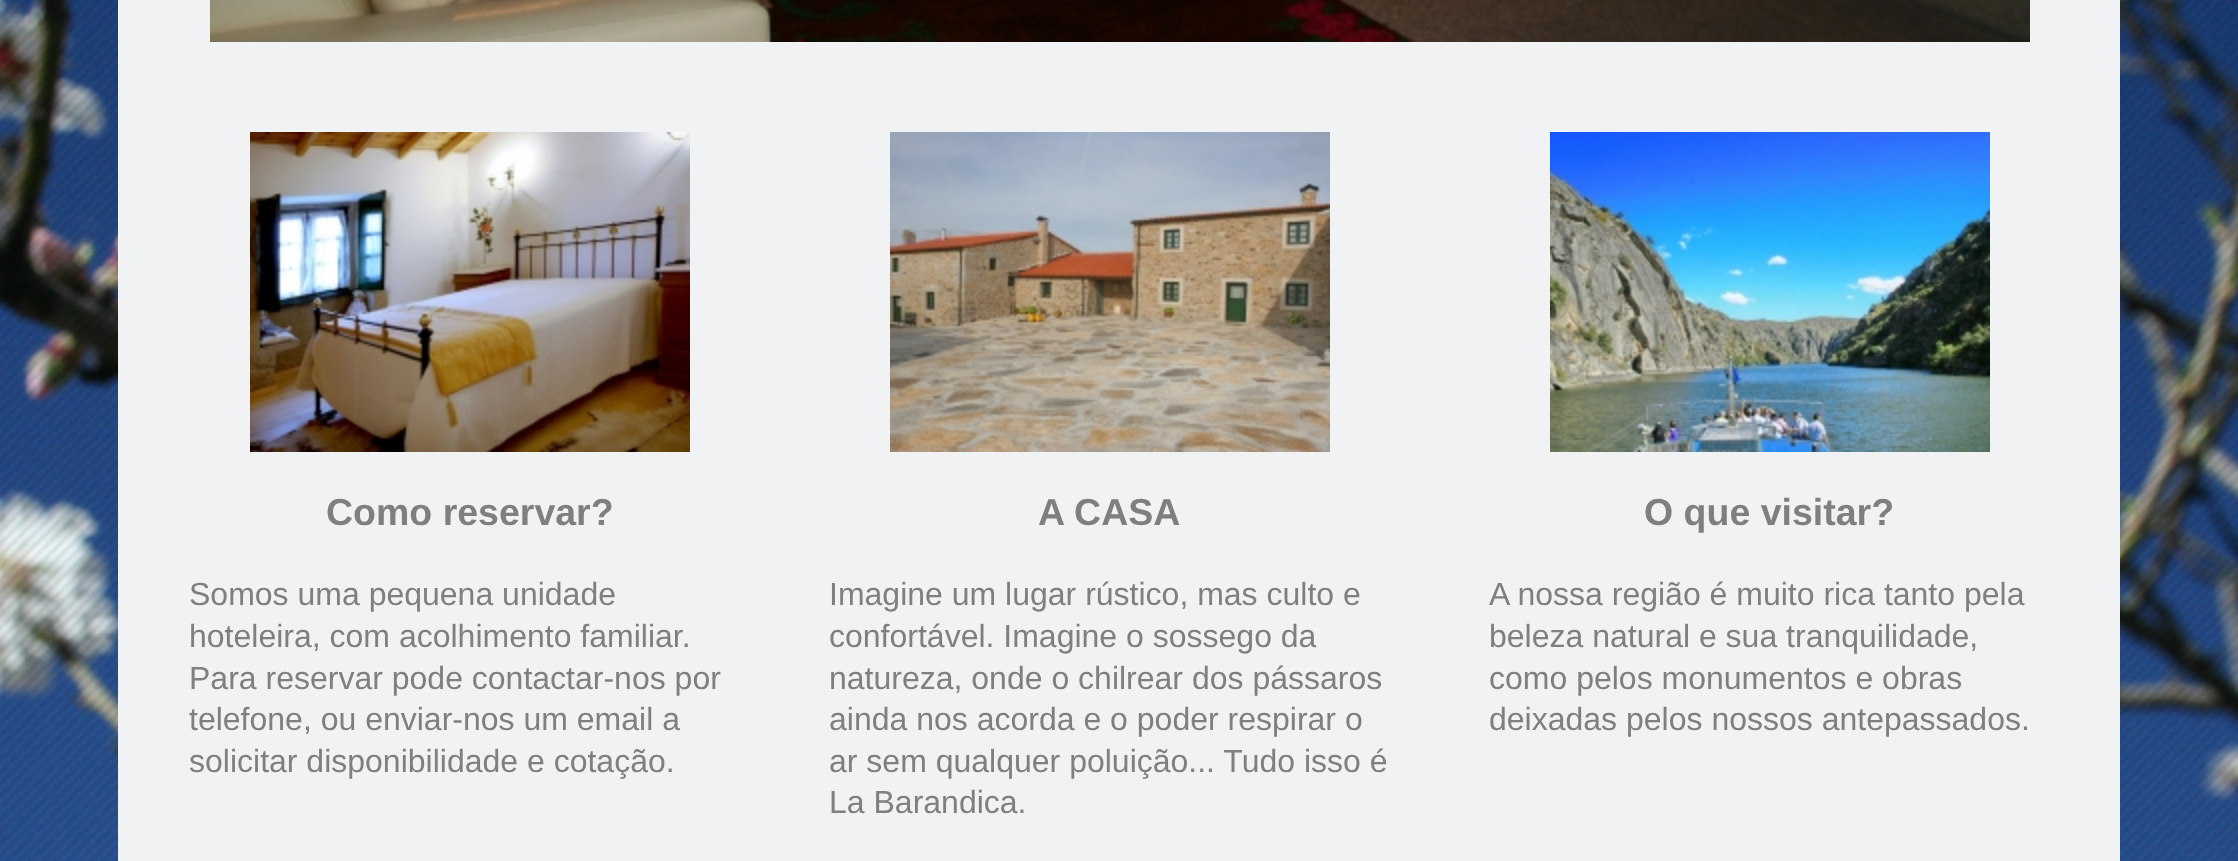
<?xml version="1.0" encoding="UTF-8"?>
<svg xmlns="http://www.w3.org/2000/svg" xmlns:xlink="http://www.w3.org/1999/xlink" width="2238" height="861">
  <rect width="100%" height="100%" fill="#ffffff" />
  <image x="0" y="0" width="2238" height="861" xlink:href="image1.png" />
  <image x="0" y="0" width="2238" height="861" xlink:href="image2.png" />
  <rect x="118" width="2002" height="861" fill="#f1f2f4" />
  <image x="210" y="0" width="1820" height="42" xlink:href="image3.png" />
  <image x="250" y="132" width="440" height="320" xlink:href="image4.png" />
  <image x="890" y="132" width="440" height="320" xlink:href="image5.png" />
  <image x="1550" y="132" width="440" height="320" xlink:href="image6.png" />
  <text x="326" y="525" style="font-family: Liberation Sans; font-size: 37.5px; font-weight: bold; fill: #7f7f7f">Como reservar?</text>
  <text x="189" y="605" style="font-family: Liberation Sans; font-size: 32px; fill: #7f7f7f">Somos uma pequena unidade</text>
  <text x="189" y="647" style="font-family: Liberation Sans; font-size: 32px; fill: #7f7f7f">hoteleira, com acolhimento familiar.</text>
  <text x="189" y="689" style="font-family: Liberation Sans; font-size: 32px; fill: #7f7f7f">Para reservar pode contactar-nos por</text>
  <text x="189" y="730" style="font-family: Liberation Sans; font-size: 32px; fill: #7f7f7f">telefone, ou enviar-nos um email a</text>
  <text x="189" y="772" style="font-family: Liberation Sans; font-size: 32px; fill: #7f7f7f">solicitar disponibilidade e cotação.</text>
  <text x="1038" y="525" style="font-family: Liberation Sans; font-size: 37.5px; font-weight: bold; fill: #7f7f7f">A CASA</text>
  <text x="829" y="605" style="font-family: Liberation Sans; font-size: 32px; fill: #7f7f7f">Imagine um lugar rústico, mas culto e</text>
  <text x="829" y="647" style="font-family: Liberation Sans; font-size: 32px; fill: #7f7f7f">confortável. Imagine o sossego da</text>
  <text x="829" y="689" style="font-family: Liberation Sans; font-size: 32px; fill: #7f7f7f">natureza, onde o chilrear dos pássaros</text>
  <text x="829" y="730" style="font-family: Liberation Sans; font-size: 32px; fill: #7f7f7f">ainda nos acorda e o poder respirar o</text>
  <text x="829" y="772" style="font-family: Liberation Sans; font-size: 32px; fill: #7f7f7f">ar sem qualquer poluição... Tudo isso é</text>
  <text x="829" y="813" style="font-family: Liberation Sans; font-size: 32px; fill: #7f7f7f">La Barandica.</text>
  <text x="1644" y="525" style="font-family: Liberation Sans; font-size: 37.5px; font-weight: bold; fill: #7f7f7f">O que visitar?</text>
  <text x="1489" y="605" style="font-family: Liberation Sans; font-size: 32px; fill: #7f7f7f">A nossa região é muito rica tanto pela</text>
  <text x="1489" y="647" style="font-family: Liberation Sans; font-size: 32px; fill: #7f7f7f">beleza natural e sua tranquilidade,</text>
  <text x="1489" y="689" style="font-family: Liberation Sans; font-size: 32px; fill: #7f7f7f">como pelos monumentos e obras</text>
  <text x="1489" y="730" style="font-family: Liberation Sans; font-size: 32px; fill: #7f7f7f">deixadas pelos nossos antepassados.</text>
</svg>
